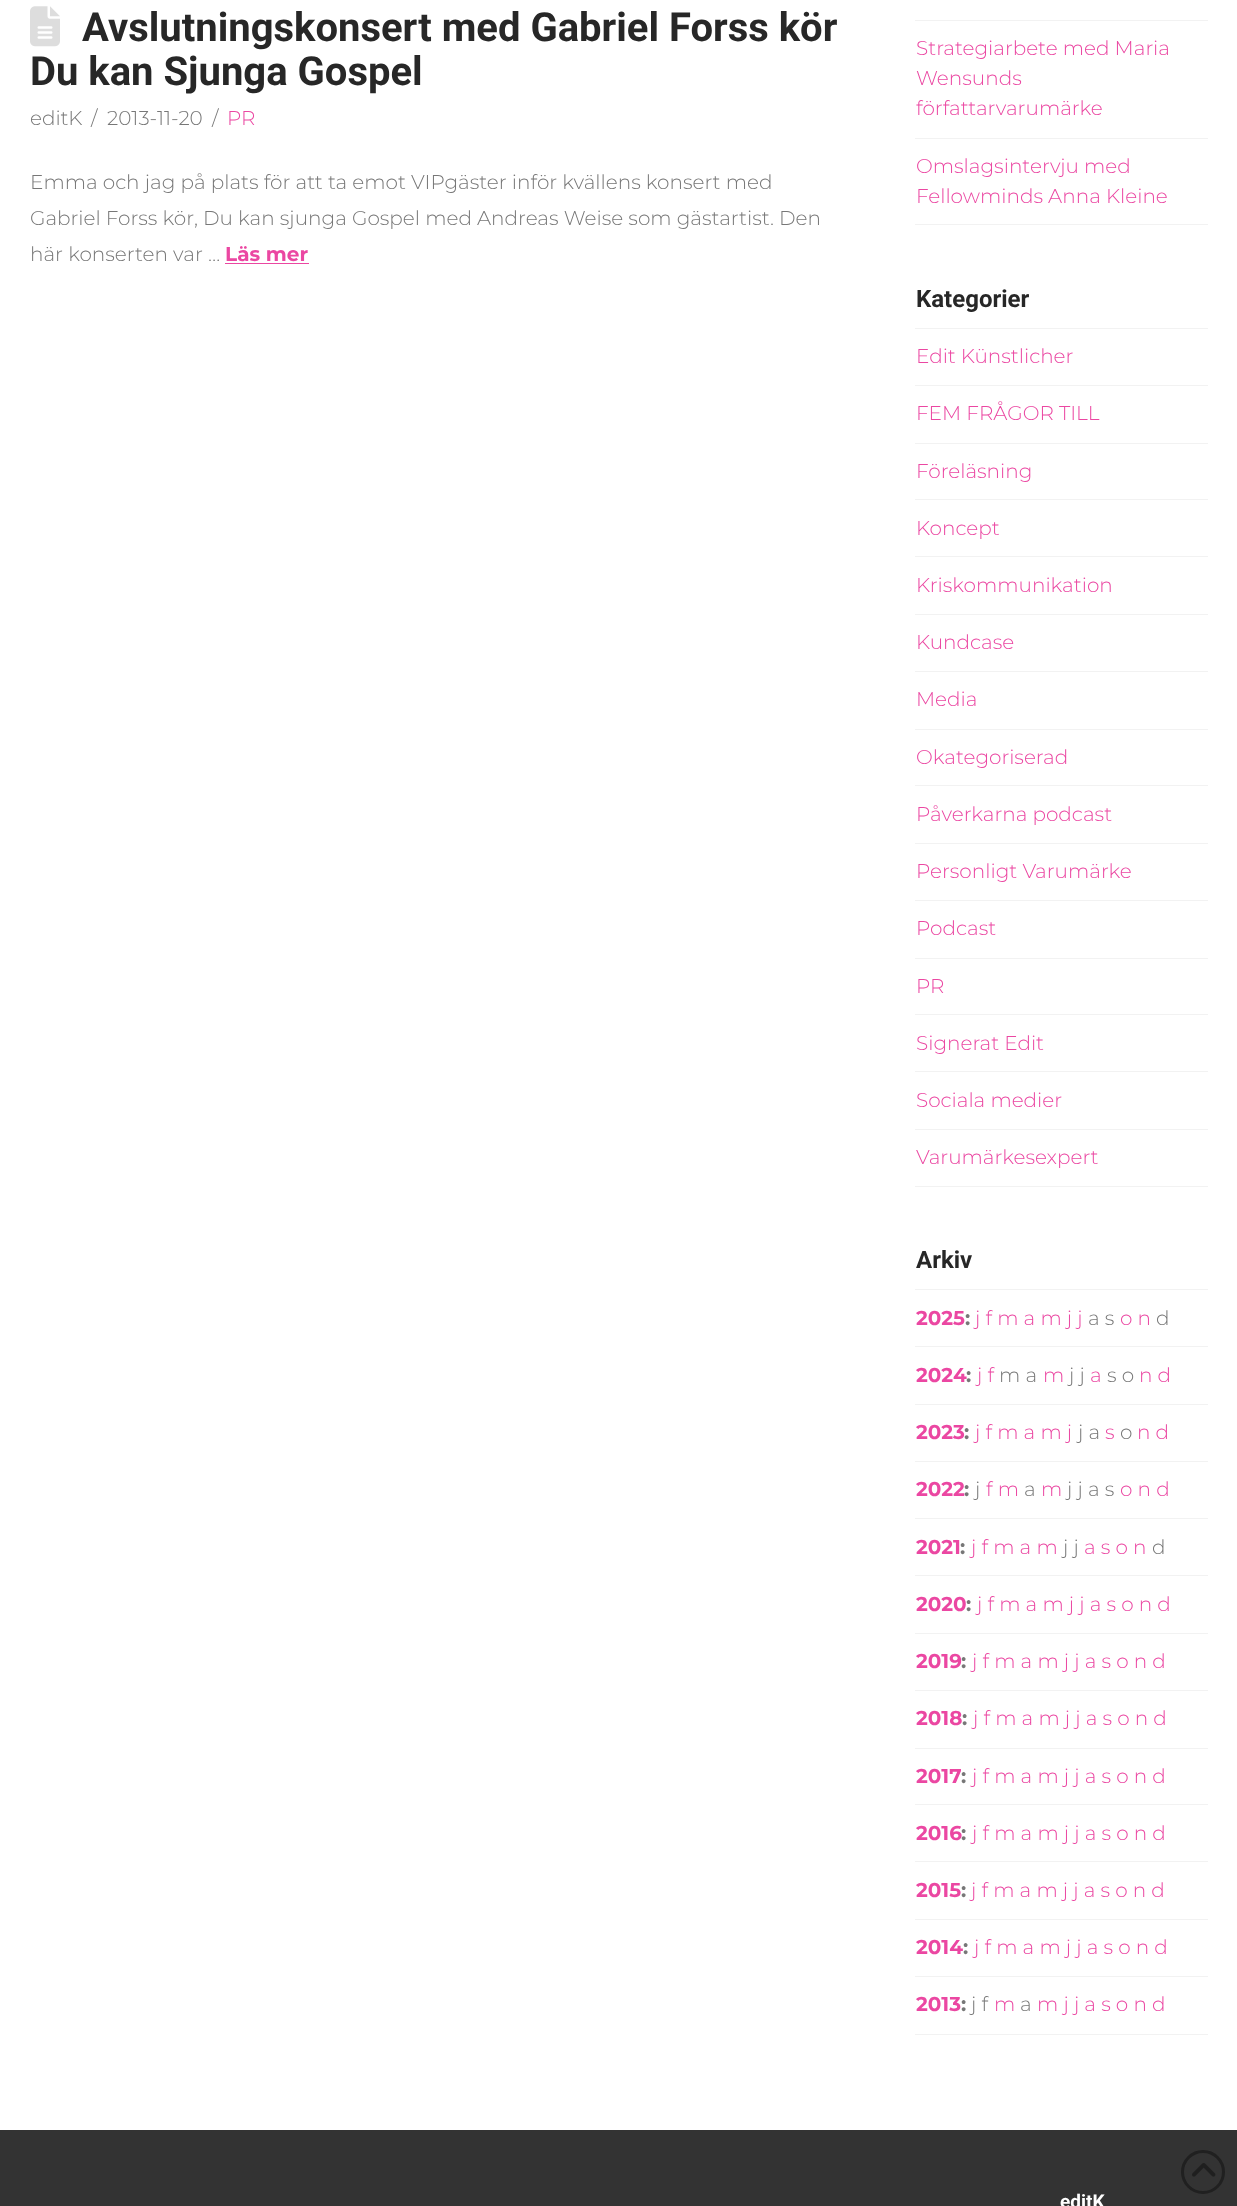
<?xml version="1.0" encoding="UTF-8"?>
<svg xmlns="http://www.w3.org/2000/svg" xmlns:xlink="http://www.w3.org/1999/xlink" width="1237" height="2206">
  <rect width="100%" height="100%" fill="#ffffff" />
  <image x="30" y="6" width="30" height="41" xlink:href="image1.png" />
  <rect x="225" y="263" width="84" height="1" fill="#eb47a2" />
  <rect x="915" y="20" width="293" height="1" fill="#f2f2f2" />
  <rect x="915" y="138" width="293" height="1" fill="#f2f2f2" />
  <rect x="915" y="224" width="293" height="1" fill="#f2f2f2" />
  <rect x="915" y="1186" width="293" height="1" fill="#f2f2f2" />
  <rect x="915" y="328" width="293" height="1" fill="#f2f2f2" />
  <rect x="915" y="385" width="293" height="1" fill="#f2f2f2" />
  <rect x="915" y="443" width="293" height="1" fill="#f2f2f2" />
  <rect x="915" y="499" width="293" height="1" fill="#f2f2f2" />
  <rect x="915" y="556" width="293" height="1" fill="#f2f2f2" />
  <rect x="915" y="614" width="293" height="1" fill="#f2f2f2" />
  <rect x="915" y="671" width="293" height="1" fill="#f2f2f2" />
  <rect x="915" y="729" width="293" height="1" fill="#f2f2f2" />
  <rect x="915" y="785" width="293" height="1" fill="#f2f2f2" />
  <rect x="915" y="843" width="293" height="1" fill="#f2f2f2" />
  <rect x="915" y="900" width="293" height="1" fill="#f2f2f2" />
  <rect x="915" y="958" width="293" height="1" fill="#f2f2f2" />
  <rect x="915" y="1014" width="293" height="1" fill="#f2f2f2" />
  <rect x="915" y="1071" width="293" height="1" fill="#f2f2f2" />
  <rect x="915" y="1129" width="293" height="1" fill="#f2f2f2" />
  <rect x="915" y="1289" width="293" height="1" fill="#f2f2f2" />
  <rect x="915" y="1346" width="293" height="1" fill="#f2f2f2" />
  <rect x="915" y="1404" width="293" height="1" fill="#f2f2f2" />
  <rect x="915" y="1461" width="293" height="1" fill="#f2f2f2" />
  <rect x="915" y="1518" width="293" height="1" fill="#f2f2f2" />
  <rect x="915" y="1575" width="293" height="1" fill="#f2f2f2" />
  <rect x="915" y="1633" width="293" height="1" fill="#f2f2f2" />
  <rect x="915" y="1690" width="293" height="1" fill="#f2f2f2" />
  <rect x="915" y="1748" width="293" height="1" fill="#f2f2f2" />
  <rect x="915" y="1804" width="293" height="1" fill="#f2f2f2" />
  <rect x="915" y="1861" width="293" height="1" fill="#f2f2f2" />
  <rect x="915" y="1919" width="293" height="1" fill="#f2f2f2" />
  <rect x="915" y="1976" width="293" height="1" fill="#f2f2f2" />
  <rect x="915" y="2034" width="293" height="1" fill="#f2f2f2" />
  <rect y="2130" width="1237" height="76" fill="#333333" />
  <circle cx="1203" cy="2172" r="20.5" fill="none" stroke="#202020" stroke-width="3" />
  <image x="1192" y="2163" width="24" height="14" xlink:href="image2.png" />
  <text x="82" y="41" style="font-family: Roboto; font-size: 40px; font-weight: bold; fill: #272727">Avslutningskonsert med Gabriel Forss kör</text>
  <text x="30" y="85" style="font-family: Roboto; font-size: 40px; font-weight: bold; fill: #272727">Du kan Sjunga Gospel</text>
  <text x="30" y="125" style="font-family: Montserrat; font-size: 20px; font-weight: 300; fill: #777777">editK</text>
  <text x="91" y="125" style="font-family: Montserrat; font-size: 20px; font-weight: 300; fill: #777777">/</text>
  <text x="107" y="125" style="font-family: Montserrat; font-size: 20px; font-weight: 300; fill: #777777">2013-11-20</text>
  <text x="212" y="125" style="font-family: Montserrat; font-size: 20px; font-weight: 300; fill: #777777">/</text>
  <text x="227" y="125" style="font-family: Montserrat; font-size: 20px; font-weight: 300; fill: #eb47a2">PR</text>
  <text x="30" y="189" style="font-family: Montserrat; font-size: 20px; font-weight: 300; fill: #777777">Emma och jag på plats för att ta emot VIPgäster inför kvällens konsert med</text>
  <text x="30" y="225" style="font-family: Montserrat; font-size: 20px; font-weight: 300; fill: #777777">Gabriel Forss kör, Du kan sjunga Gospel med Andreas Weise som gästartist. Den</text>
  <text x="30" y="261" style="font-family: Montserrat; font-size: 20px; font-weight: 300; fill: #777777">här konserten var …</text>
  <text x="225" y="261" style="font-family: Montserrat; font-size: 20px; font-weight: bold; fill: #eb47a2">Läs mer</text>
  <text x="916" y="55" style="font-family: Montserrat; font-size: 20px; font-weight: 300; fill: #eb47a2">Strategiarbete med Maria</text>
  <text x="916" y="85" style="font-family: Montserrat; font-size: 20px; font-weight: 300; fill: #eb47a2">Wensunds</text>
  <text x="916" y="115" style="font-family: Montserrat; font-size: 20px; font-weight: 300; fill: #eb47a2">författarvarumärke</text>
  <text x="916" y="173" style="font-family: Montserrat; font-size: 20px; font-weight: 300; fill: #eb47a2">Omslagsintervju med</text>
  <text x="916" y="203" style="font-family: Montserrat; font-size: 20px; font-weight: 300; fill: #eb47a2">Fellowminds Anna Kleine</text>
  <text x="916" y="307" style="font-family: Roboto; font-size: 24px; font-weight: bold; fill: #272727">Kategorier</text>
  <text x="916" y="363" style="font-family: Montserrat; font-size: 20px; font-weight: 300; fill: #eb47a2">Edit Künstlicher</text>
  <text x="916" y="420" style="font-family: Montserrat; font-size: 20px; font-weight: 300; fill: #eb47a2">FEM FRÅGOR TILL</text>
  <text x="916" y="478" style="font-family: Montserrat; font-size: 20px; font-weight: 300; fill: #eb47a2">Föreläsning</text>
  <text x="916" y="535" style="font-family: Montserrat; font-size: 20px; font-weight: 300; fill: #eb47a2">Koncept</text>
  <text x="916" y="592" style="font-family: Montserrat; font-size: 20px; font-weight: 300; fill: #eb47a2">Kriskommunikation</text>
  <text x="916" y="649" style="font-family: Montserrat; font-size: 20px; font-weight: 300; fill: #eb47a2">Kundcase</text>
  <text x="916" y="706" style="font-family: Montserrat; font-size: 20px; font-weight: 300; fill: #eb47a2">Media</text>
  <text x="916" y="764" style="font-family: Montserrat; font-size: 20px; font-weight: 300; fill: #eb47a2">Okategoriserad</text>
  <text x="916" y="821" style="font-family: Montserrat; font-size: 20px; font-weight: 300; fill: #eb47a2">Påverkarna podcast</text>
  <text x="916" y="878" style="font-family: Montserrat; font-size: 20px; font-weight: 300; fill: #eb47a2">Personligt Varumärke</text>
  <text x="916" y="935" style="font-family: Montserrat; font-size: 20px; font-weight: 300; fill: #eb47a2">Podcast</text>
  <text x="916" y="993" style="font-family: Montserrat; font-size: 20px; font-weight: 300; fill: #eb47a2">PR</text>
  <text x="916" y="1050" style="font-family: Montserrat; font-size: 20px; font-weight: 300; fill: #eb47a2">Signerat Edit</text>
  <text x="916" y="1107" style="font-family: Montserrat; font-size: 20px; font-weight: 300; fill: #eb47a2">Sociala medier</text>
  <text x="916" y="1164" style="font-family: Montserrat; font-size: 20px; font-weight: 300; fill: #eb47a2">Varumärkesexpert</text>
  <text x="916" y="1268" style="font-family: Roboto; font-size: 24px; font-weight: bold; fill: #272727">Arkiv</text>
  <text x="916" y="1325" style="font-family: Montserrat; font-size: 20px; font-weight: bold; fill: #eb47a2">2025</text>
  <text x="965" y="1325" style="font-family: Montserrat; font-size: 20px; font-weight: bold; fill: #777777">:</text>
  <text x="975" y="1325" style="font-family: Montserrat; font-size: 20px; font-weight: 300; fill: #eb47a2">j f m a m j j</text>
  <text x="1088" y="1325" style="font-family: Montserrat; font-size: 20px; font-weight: 300; fill: #777777">a s</text>
  <text x="1120" y="1325" style="font-family: Montserrat; font-size: 20px; font-weight: 300; fill: #eb47a2">o n</text>
  <text x="1156" y="1325" style="font-family: Montserrat; font-size: 20px; font-weight: 300; fill: #777777">d</text>
  <text x="916" y="1382" style="font-family: Montserrat; font-size: 20px; font-weight: bold; fill: #eb47a2">2024</text>
  <text x="966" y="1382" style="font-family: Montserrat; font-size: 20px; font-weight: bold; fill: #777777">:</text>
  <text x="977" y="1382" style="font-family: Montserrat; font-size: 20px; font-weight: 300; fill: #eb47a2">j f</text>
  <text x="999" y="1382" style="font-family: Montserrat; font-size: 20px; font-weight: 300; fill: #777777">m a</text>
  <text x="1043" y="1382" style="font-family: Montserrat; font-size: 20px; font-weight: 300; fill: #eb47a2">m</text>
  <text x="1069" y="1382" style="font-family: Montserrat; font-size: 20px; font-weight: 300; fill: #777777">j j</text>
  <text x="1090" y="1382" style="font-family: Montserrat; font-size: 20px; font-weight: 300; fill: #eb47a2">a</text>
  <text x="1107" y="1382" style="font-family: Montserrat; font-size: 20px; font-weight: 300; fill: #777777">s o</text>
  <text x="1139" y="1382" style="font-family: Montserrat; font-size: 20px; font-weight: 300; fill: #eb47a2">n d</text>
  <text x="916" y="1439" style="font-family: Montserrat; font-size: 20px; font-weight: bold; fill: #eb47a2">2023</text>
  <text x="964" y="1439" style="font-family: Montserrat; font-size: 20px; font-weight: bold; fill: #777777">:</text>
  <text x="975" y="1439" style="font-family: Montserrat; font-size: 20px; font-weight: 300; fill: #eb47a2">j f m a m j</text>
  <text x="1078" y="1439" style="font-family: Montserrat; font-size: 20px; font-weight: 300; fill: #777777">j a</text>
  <text x="1105" y="1439" style="font-family: Montserrat; font-size: 20px; font-weight: 300; fill: #eb47a2">s</text>
  <text x="1120" y="1439" style="font-family: Montserrat; font-size: 20px; font-weight: 300; fill: #777777">o</text>
  <text x="1137" y="1439" style="font-family: Montserrat; font-size: 20px; font-weight: 300; fill: #eb47a2">n d</text>
  <text x="916" y="1496" style="font-family: Montserrat; font-size: 20px; font-weight: bold; fill: #eb47a2">2022</text>
  <text x="964" y="1496" style="font-family: Montserrat; font-size: 20px; font-weight: bold; fill: #777777">:</text>
  <text x="975" y="1496" style="font-family: Montserrat; font-size: 20px; font-weight: 300; fill: #777777">j</text>
  <text x="986" y="1496" style="font-family: Montserrat; font-size: 20px; font-weight: 300; fill: #eb47a2">f m</text>
  <text x="1024" y="1496" style="font-family: Montserrat; font-size: 20px; font-weight: 300; fill: #777777">a</text>
  <text x="1041" y="1496" style="font-family: Montserrat; font-size: 20px; font-weight: 300; fill: #eb47a2">m</text>
  <text x="1067" y="1496" style="font-family: Montserrat; font-size: 20px; font-weight: 300; fill: #777777">j j a s</text>
  <text x="1120" y="1496" style="font-family: Montserrat; font-size: 20px; font-weight: 300; fill: #eb47a2">o n d</text>
  <text x="916" y="1554" style="font-family: Montserrat; font-size: 20px; font-weight: bold; fill: #eb47a2">2021</text>
  <text x="960" y="1554" style="font-family: Montserrat; font-size: 20px; font-weight: bold; fill: #777777">:</text>
  <text x="971" y="1554" style="font-family: Montserrat; font-size: 20px; font-weight: 300; fill: #eb47a2">j f m a m</text>
  <text x="1063" y="1554" style="font-family: Montserrat; font-size: 20px; font-weight: 300; fill: #777777">j j</text>
  <text x="1084" y="1554" style="font-family: Montserrat; font-size: 20px; font-weight: 300; fill: #eb47a2">a s o n</text>
  <text x="1152" y="1554" style="font-family: Montserrat; font-size: 20px; font-weight: 300; fill: #777777">d</text>
  <text x="916" y="1611" style="font-family: Montserrat; font-size: 20px; font-weight: bold; fill: #eb47a2">2020</text>
  <text x="966" y="1611" style="font-family: Montserrat; font-size: 20px; font-weight: bold; fill: #777777">:</text>
  <text x="977" y="1611" style="font-family: Montserrat; font-size: 20px; font-weight: 300; fill: #eb47a2">j f m a m j j a s o n d</text>
  <text x="916" y="1668" style="font-family: Montserrat; font-size: 20px; font-weight: bold; fill: #eb47a2">2019</text>
  <text x="961" y="1668" style="font-family: Montserrat; font-size: 20px; font-weight: bold; fill: #777777">:</text>
  <text x="972" y="1668" style="font-family: Montserrat; font-size: 20px; font-weight: 300; fill: #eb47a2">j f m a m j j a s o n d</text>
  <text x="916" y="1725" style="font-family: Montserrat; font-size: 20px; font-weight: bold; fill: #eb47a2">2018</text>
  <text x="962" y="1725" style="font-family: Montserrat; font-size: 20px; font-weight: bold; fill: #777777">:</text>
  <text x="973" y="1725" style="font-family: Montserrat; font-size: 20px; font-weight: 300; fill: #eb47a2">j f m a m j j a s o n d</text>
  <text x="916" y="1783" style="font-family: Montserrat; font-size: 20px; font-weight: bold; fill: #eb47a2">2017</text>
  <text x="961" y="1783" style="font-family: Montserrat; font-size: 20px; font-weight: bold; fill: #777777">:</text>
  <text x="972" y="1783" style="font-family: Montserrat; font-size: 20px; font-weight: 300; fill: #eb47a2">j f m a m j j a s o n d</text>
  <text x="916" y="1840" style="font-family: Montserrat; font-size: 20px; font-weight: bold; fill: #eb47a2">2016</text>
  <text x="961" y="1840" style="font-family: Montserrat; font-size: 20px; font-weight: bold; fill: #777777">:</text>
  <text x="972" y="1840" style="font-family: Montserrat; font-size: 20px; font-weight: 300; fill: #eb47a2">j f m a m j j a s o n d</text>
  <text x="916" y="1897" style="font-family: Montserrat; font-size: 20px; font-weight: bold; fill: #eb47a2">2015</text>
  <text x="961" y="1897" style="font-family: Montserrat; font-size: 20px; font-weight: bold; fill: #777777">:</text>
  <text x="971" y="1897" style="font-family: Montserrat; font-size: 20px; font-weight: 300; fill: #eb47a2">j f m a m j j a s o n d</text>
  <text x="916" y="1954" style="font-family: Montserrat; font-size: 20px; font-weight: bold; fill: #eb47a2">2014</text>
  <text x="963" y="1954" style="font-family: Montserrat; font-size: 20px; font-weight: bold; fill: #777777">:</text>
  <text x="974" y="1954" style="font-family: Montserrat; font-size: 20px; font-weight: 300; fill: #eb47a2">j f m a m j j a s o n d</text>
  <text x="916" y="2011" style="font-family: Montserrat; font-size: 20px; font-weight: bold; fill: #eb47a2">2013</text>
  <text x="961" y="2011" style="font-family: Montserrat; font-size: 20px; font-weight: bold; fill: #777777">:</text>
  <text x="971" y="2011" style="font-family: Montserrat; font-size: 20px; font-weight: 300; fill: #777777">j f</text>
  <text x="994" y="2011" style="font-family: Montserrat; font-size: 20px; font-weight: 300; fill: #eb47a2">m</text>
  <text x="1020" y="2011" style="font-family: Montserrat; font-size: 20px; font-weight: 300; fill: #777777">a</text>
  <text x="1037" y="2011" style="font-family: Montserrat; font-size: 20px; font-weight: 300; fill: #eb47a2">m j j a s o n d</text>
  <text x="1060" y="2208" style="font-family: Roboto; font-size: 19px; font-weight: bold; fill: #ffffff">editK</text>
</svg>
